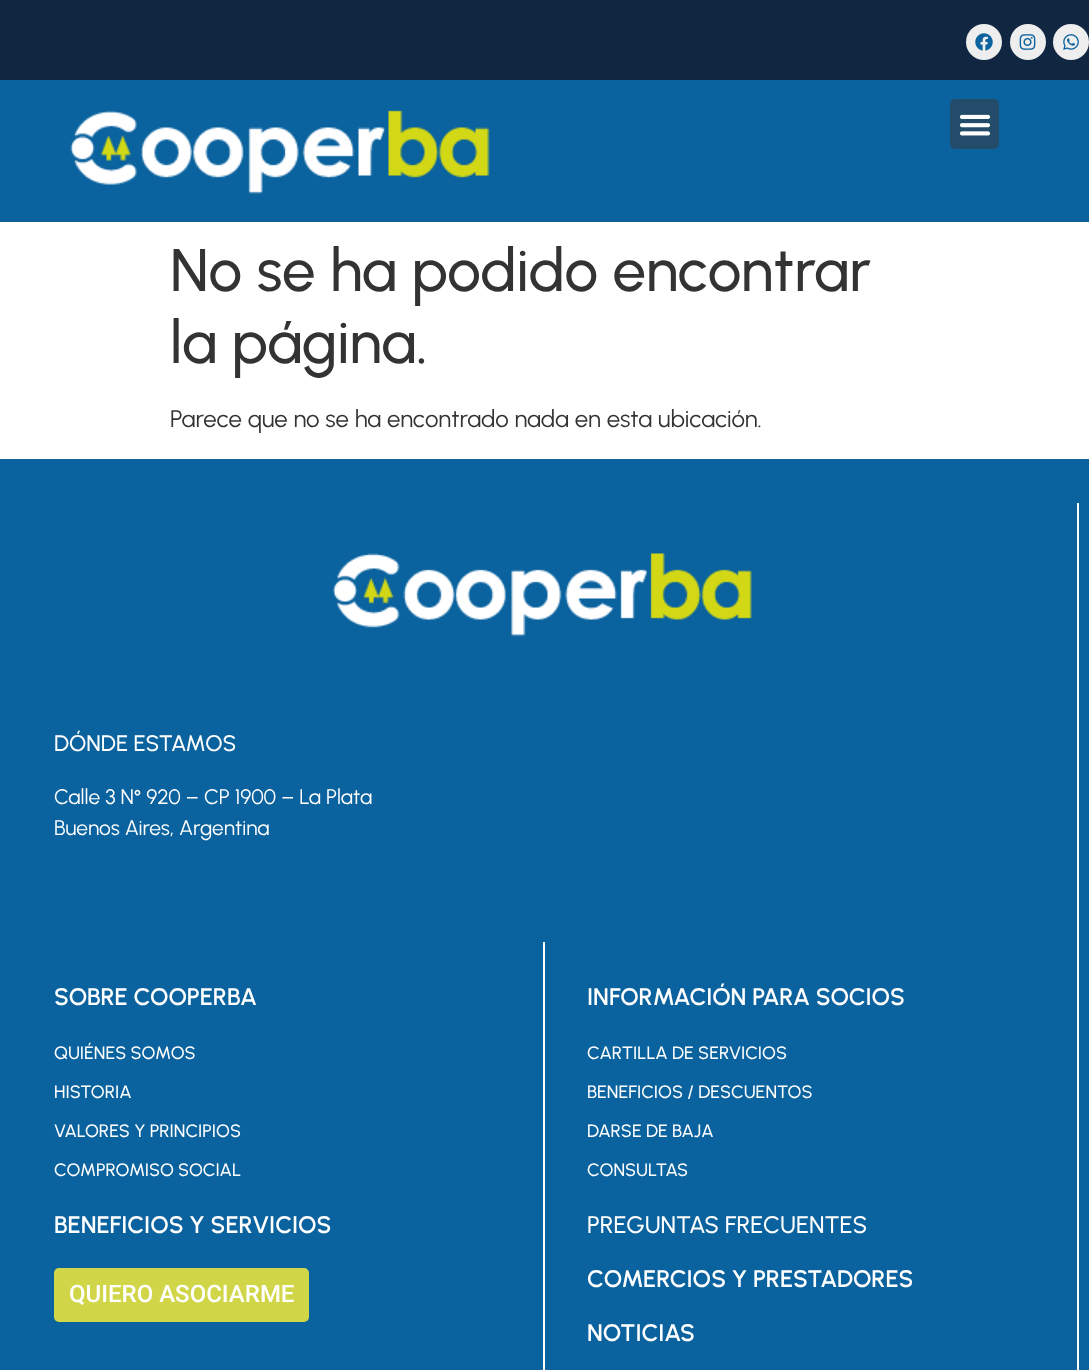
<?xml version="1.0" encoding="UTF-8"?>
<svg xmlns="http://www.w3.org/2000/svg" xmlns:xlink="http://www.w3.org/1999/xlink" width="1089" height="1370">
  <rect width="100%" height="100%" fill="#ffffff" />
  <rect y="80" width="1089" height="142" fill="#0a629e" />
  <rect width="1089" height="80" fill="#102641" />
  <circle cx="984" cy="42" r="18" fill="#eeeeee" />
  <image x="975" y="33" width="18" height="18" xlink:href="image1.png" />
  <circle cx="1028" cy="42" r="18" fill="#eeeeee" />
  <image x="1019" y="34" width="17" height="16" xlink:href="image2.png" />
  <circle cx="1071" cy="42" r="18" fill="#eeeeee" />
  <image x="1063" y="34" width="16" height="16" xlink:href="image3.png" />
  <image x="70" y="110" width="420" height="84" xlink:href="image4.png" />
  <rect x="950" y="99" width="49" height="50" rx="5" fill="#224c69" />
  <image x="959" y="114" width="32" height="22" xlink:href="image5.png" />
  <rect y="459" width="1089" height="911" fill="#0a629e" />
  <rect x="1077" y="503" width="2" height="867" fill="#ffffff" />
  <image x="332" y="553" width="420" height="84" xlink:href="image6.png" />
  <rect x="543" y="942" width="2" height="428" fill="#ffffff" />
  <rect x="54" y="1268" width="255" height="54" rx="5" fill="#d1d649" />
  <text x="170" y="291" style="font-family: Urbanist; font-size: 60px; font-weight: 500; fill: #333333">No se ha podido encontrar</text>
  <text x="170" y="363" style="font-family: Urbanist; font-size: 60px; font-weight: 500; fill: #333333">la página.</text>
  <text x="170" y="427" style="font-family: Urbanist; font-size: 24px; fill: #333333">Parece que no se ha encontrado nada en esta ubicación.</text>
  <text x="54" y="751" style="font-family: Urbanist; font-size: 22.5px; font-weight: 500; fill: #ffffff">DÓNDE ESTAMOS</text>
  <text x="54" y="804" style="font-family: Urbanist; font-size: 21px; fill: #ffffff">Calle 3 N° 920 – CP 1900 – La Plata</text>
  <text x="54" y="835" style="font-family: Urbanist; font-size: 21px; fill: #ffffff">Buenos Aires, Argentina</text>
  <text x="54" y="1005" style="font-family: Urbanist; font-size: 24px; font-weight: 600; fill: #ffffff">SOBRE COOPERBA</text>
  <text x="54" y="1059" style="font-family: Urbanist; font-size: 18px; font-weight: 500; fill: #ffffff">QUIÉNES SOMOS</text>
  <text x="54" y="1098" style="font-family: Urbanist; font-size: 18px; font-weight: 500; fill: #ffffff">HISTORIA</text>
  <text x="54" y="1137" style="font-family: Urbanist; font-size: 18px; font-weight: 500; fill: #ffffff">VALORES Y PRINCIPIOS</text>
  <text x="54" y="1176" style="font-family: Urbanist; font-size: 18px; font-weight: 500; fill: #ffffff">COMPROMISO SOCIAL</text>
  <text x="54" y="1233" style="font-family: Urbanist; font-size: 24px; font-weight: 600; fill: #ffffff">BENEFICIOS Y SERVICIOS</text>
  <text x="69" y="1302" style="font-family: Roboto; font-size: 24px; font-weight: 500; fill: #ffffff">QUIERO ASOCIARME</text>
  <text x="587" y="1005" style="font-family: Urbanist; font-size: 24px; font-weight: 600; fill: #ffffff">INFORMACIÓN PARA SOCIOS</text>
  <text x="587" y="1059" style="font-family: Urbanist; font-size: 18px; font-weight: 500; fill: #ffffff">CARTILLA DE SERVICIOS</text>
  <text x="587" y="1098" style="font-family: Urbanist; font-size: 18px; font-weight: 500; fill: #ffffff">BENEFICIOS / DESCUENTOS</text>
  <text x="587" y="1137" style="font-family: Urbanist; font-size: 18px; font-weight: 500; fill: #ffffff">DARSE DE BAJA</text>
  <text x="587" y="1176" style="font-family: Urbanist; font-size: 18px; font-weight: 500; fill: #ffffff">CONSULTAS</text>
  <text x="587" y="1233" style="font-family: Urbanist; font-size: 24px; font-weight: 500; fill: #ffffff">PREGUNTAS FRECUENTES</text>
  <text x="587" y="1287" style="font-family: Urbanist; font-size: 24px; font-weight: 600; fill: #ffffff">COMERCIOS Y PRESTADORES</text>
  <text x="587" y="1341" style="font-family: Urbanist; font-size: 24px; font-weight: 600; fill: #ffffff">NOTICIAS</text>
</svg>
